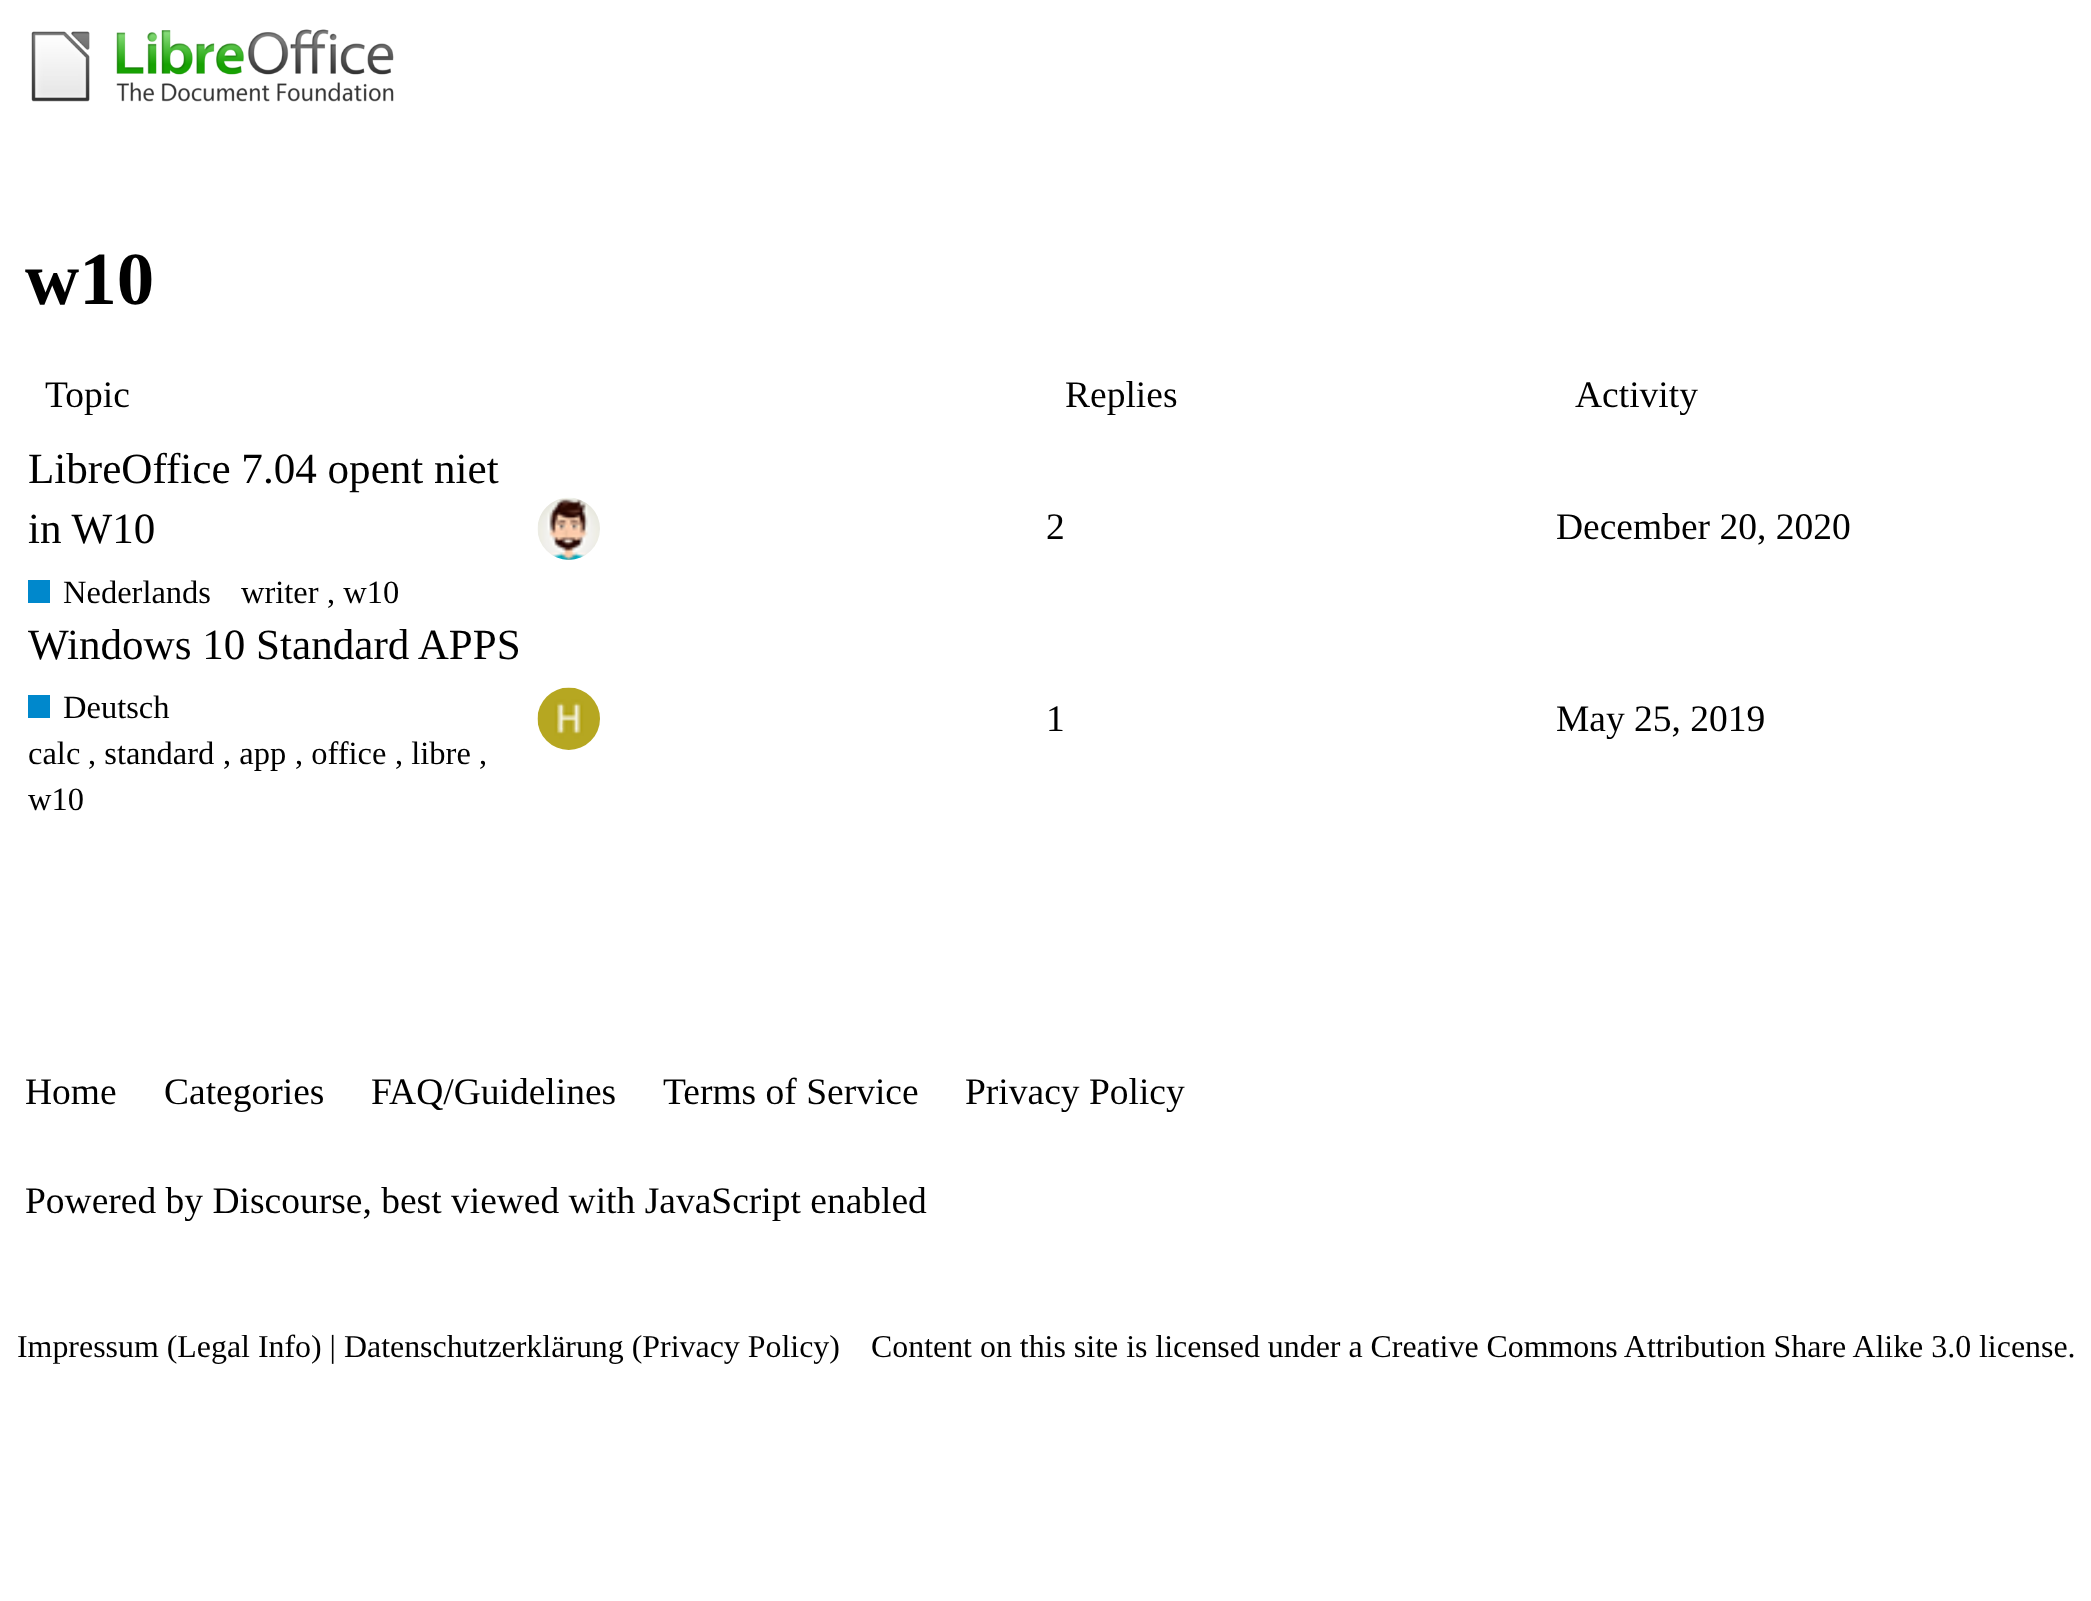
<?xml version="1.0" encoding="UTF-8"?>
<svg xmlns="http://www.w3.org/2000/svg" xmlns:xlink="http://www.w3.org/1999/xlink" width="2091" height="1601">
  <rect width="100%" height="100%" fill="#ffffff" />
  <image x="31" y="29" width="363" height="73" xlink:href="image1.png" />
  <rect x="28" y="580" width="22" height="23" fill="#0088cc" />
  <image x="537" y="497" width="63" height="63" xlink:href="image2.png" />
  <rect x="28" y="695" width="22" height="23" fill="#0088cc" />
  <image x="537" y="687" width="63" height="63" xlink:href="image3.png" />
  <text x="25" y="304" style="font-family: Liberation Serif; font-size: 75px; font-weight: bold; fill: #000000">w10</text>
  <text x="45" y="407" style="font-family: Liberation Serif; font-size: 37.5px; fill: #000000">Topic</text>
  <text x="1065" y="407" style="font-family: Liberation Serif; font-size: 37.5px; fill: #000000">Replies</text>
  <text x="1575" y="407" style="font-family: Liberation Serif; font-size: 37.5px; fill: #000000">Activity</text>
  <text x="28" y="483" style="font-family: Liberation Serif; font-size: 43.1px; fill: #000000">LibreOffice 7.04 opent niet</text>
  <text x="28" y="543" style="font-family: Liberation Serif; font-size: 43.1px; fill: #000000">in W10</text>
  <text x="63" y="603" style="font-family: Liberation Serif; font-size: 32.5px; fill: #000000">Nederlands</text>
  <text x="241" y="603" style="font-family: Liberation Serif; font-size: 32.5px; fill: #000000">writer</text>
  <text x="327" y="603" style="font-family: Liberation Serif; font-size: 32.5px; fill: #000000">, w10</text>
  <text x="1046" y="539" style="font-family: Liberation Serif; font-size: 37.5px; fill: #000000">2</text>
  <text x="1556" y="539" style="font-family: Liberation Serif; font-size: 37.5px; fill: #000000">December 20, 2020</text>
  <text x="28" y="659" style="font-family: Liberation Serif; font-size: 43.1px; fill: #000000">Windows 10 Standard APPS</text>
  <text x="63" y="718" style="font-family: Liberation Serif; font-size: 32.5px; fill: #000000">Deutsch</text>
  <text x="28" y="764" style="font-family: Liberation Serif; font-size: 32.5px; fill: #000000">calc</text>
  <text x="88" y="764" style="font-family: Liberation Serif; font-size: 32.5px; fill: #000000">, standard</text>
  <text x="223" y="764" style="font-family: Liberation Serif; font-size: 32.5px; fill: #000000">, app</text>
  <text x="295" y="764" style="font-family: Liberation Serif; font-size: 32.5px; fill: #000000">, office</text>
  <text x="395" y="764" style="font-family: Liberation Serif; font-size: 32.5px; fill: #000000">, libre</text>
  <text x="479" y="764" style="font-family: Liberation Serif; font-size: 32.5px; fill: #000000">,</text>
  <text x="28" y="810" style="font-family: Liberation Serif; font-size: 32.5px; fill: #000000">w10</text>
  <text x="1046" y="731" style="font-family: Liberation Serif; font-size: 37.5px; fill: #000000">1</text>
  <text x="1556" y="731" style="font-family: Liberation Serif; font-size: 37.5px; fill: #000000">May 25, 2019</text>
  <text x="25" y="1104" style="font-family: Liberation Serif; font-size: 37.5px; fill: #000000">Home</text>
  <text x="164" y="1104" style="font-family: Liberation Serif; font-size: 37.5px; fill: #000000">Categories</text>
  <text x="371" y="1104" style="font-family: Liberation Serif; font-size: 37.5px; fill: #000000">FAQ/Guidelines</text>
  <text x="663" y="1104" style="font-family: Liberation Serif; font-size: 37.5px; fill: #000000">Terms of Service</text>
  <text x="965" y="1104" style="font-family: Liberation Serif; font-size: 37.5px; fill: #000000">Privacy Policy</text>
  <text x="25" y="1213" style="font-family: Liberation Serif; font-size: 37.5px; fill: #000000">Powered by Discourse, best viewed with JavaScript enabled</text>
  <text x="17" y="1357" style="font-family: Liberation Serif; font-size: 31.9px; fill: #000000">Impressum (Legal Info) | Datenschutzerklärung (Privacy Policy)</text>
  <text x="871" y="1357" style="font-family: Liberation Serif; font-size: 31.9px; fill: #000000">Content on this site is licensed under a Creative Commons Attribution Share Alike 3.0</text>
  <text x="1979" y="1357" style="font-family: Liberation Serif; font-size: 31.9px; fill: #000000">license.</text>
</svg>
